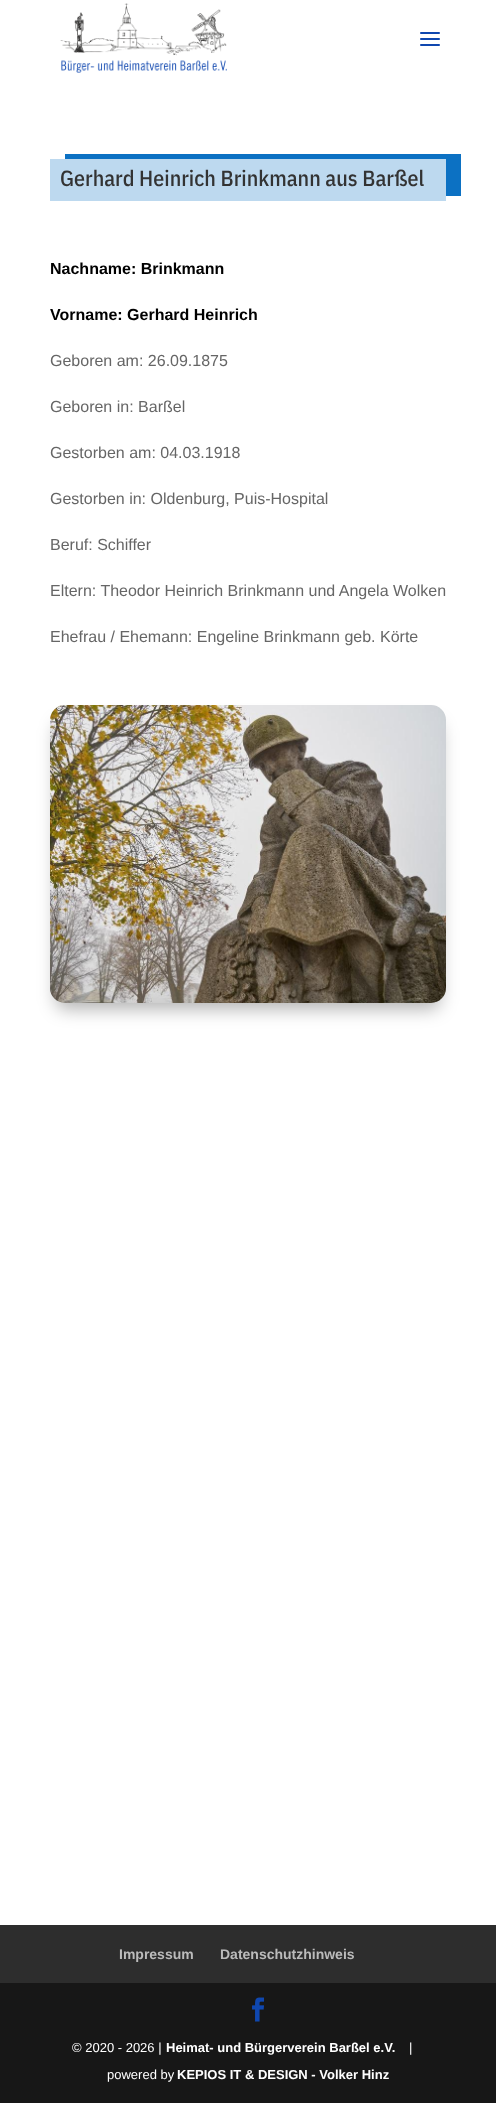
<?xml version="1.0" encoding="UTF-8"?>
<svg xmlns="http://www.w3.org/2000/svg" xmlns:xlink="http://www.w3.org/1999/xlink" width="496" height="2103">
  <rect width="100%" height="100%" fill="#ffffff" />
  <image x="60" y="3" width="167" height="70" xlink:href="image1.png" />
  <image x="420" y="32" width="20" height="14" xlink:href="image2.png" />
  <path d="M 65 154 v 5 h 381 v 37 h 15 v -42 z" fill="#0c71c3" />
  <rect x="50" y="159" width="396" height="42" fill="#bdd9ef" />
  <rect x="56" y="723" width="384" height="286" rx="9" fill="#000000" fill-opacity="0.3" filter="blur(9px)" />
  <image x="50" y="705" width="396" height="298" xlink:href="image3.png" />
  <rect y="1925" width="496" height="58" fill="#2d2d2d" />
  <rect y="1983" width="496" height="120" fill="#171717" />
  <image x="252" y="1997" width="12" height="25" xlink:href="image4.png" />
  <text x="60" y="186" style="font-family: IBM Plex Sans Condensed; font-size: 22px; font-weight: 500; fill: #333333">Gerhard Heinrich Brinkmann aus Barßel</text>
  <text x="50" y="274" style="font-family: Liberation Sans; font-size: 16px; font-weight: bold; fill: #000000">Nachname: Brinkmann</text>
  <text x="50" y="320" style="font-family: Liberation Sans; font-size: 16px; font-weight: bold; fill: #000000">Vorname: Gerhard Heinrich</text>
  <text x="50" y="366" style="font-family: Liberation Sans; font-size: 16px; fill: #666666">Geboren am: 26.09.1875</text>
  <text x="50" y="412" style="font-family: Liberation Sans; font-size: 16px; fill: #666666">Geboren in: Barßel</text>
  <text x="50" y="458" style="font-family: Liberation Sans; font-size: 16px; fill: #666666">Gestorben am: 04.03.1918</text>
  <text x="50" y="504" style="font-family: Liberation Sans; font-size: 16px; fill: #666666">Gestorben in: Oldenburg, Puis-Hospital</text>
  <text x="50" y="550" style="font-family: Liberation Sans; font-size: 16px; fill: #666666">Beruf: Schiffer</text>
  <text x="50" y="596" style="font-family: Liberation Sans; font-size: 16px; fill: #666666">Eltern: Theodor Heinrich Brinkmann und Angela Wolken</text>
  <text x="50" y="642" style="font-family: Liberation Sans; font-size: 16px; fill: #666666">Ehefrau / Ehemann: Engeline Brinkmann geb. Körte</text>
  <text x="119" y="1959" style="font-family: Liberation Sans; font-size: 14px; font-weight: bold; fill: #bbbbbb">Impressum</text>
  <text x="220" y="1959" style="font-family: Liberation Sans; font-size: 14px; font-weight: bold; fill: #bbbbbb">Datenschutzhinweis</text>
  <text x="72" y="2052" style="font-family: Liberation Sans; font-size: 13px; fill: #ffffff">© 2020 - 2026 |</text>
  <text x="166" y="2052" style="font-family: Liberation Sans; font-size: 13px; font-weight: bold; fill: #ffffff">Heimat- und Bürgerverein Barßel e.V.</text>
  <text x="409" y="2052" style="font-family: Liberation Sans; font-size: 13px; fill: #ffffff">|</text>
  <text x="107" y="2079" style="font-family: Liberation Sans; font-size: 13px; fill: #ffffff">powered by</text>
  <text x="177" y="2079" style="font-family: Liberation Sans; font-size: 13px; font-weight: bold; fill: #ffffff">KEPIOS IT &amp; DESIGN - Volker Hinz</text>
</svg>
